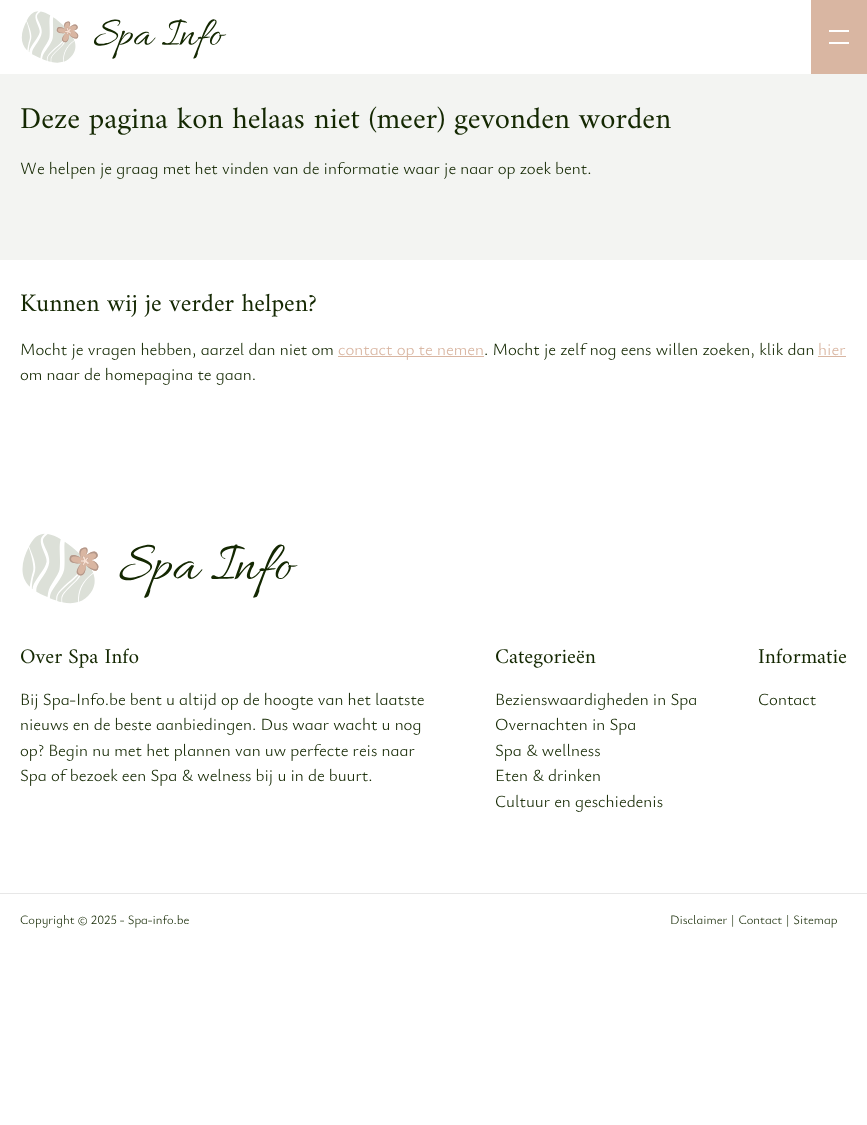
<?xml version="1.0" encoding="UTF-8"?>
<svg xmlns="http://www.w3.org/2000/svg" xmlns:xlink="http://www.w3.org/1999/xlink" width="867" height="1125">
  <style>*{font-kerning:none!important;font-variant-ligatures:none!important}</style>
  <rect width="100%" height="100%" fill="#ffffff" />
  <image x="21" y="11" width="206" height="52" xlink:href="image1.png" />
  <rect x="811" width="56" height="74" fill="#d9b6a2" />
  <rect x="829" y="30" width="20" height="2" fill="#ffffff" />
  <rect x="829" y="42" width="20" height="2" fill="#ffffff" />
  <rect y="74" width="867" height="186" fill="#f3f4f2" />
  <rect x="338" y="356" width="146" height="1" fill="#d9b6a2" />
  <rect x="818" y="356" width="28" height="1" fill="#d9b6a2" />
  <image x="22" y="533" width="276" height="71" xlink:href="image2.png" />
  <rect y="893" width="867" height="1" fill="#e7e7e7" />
  <text x="20" y="128" style="font-family: Amiri; font-size: 30.6px; fill: #142802">Deze pagina kon helaas niet (meer) gevonden worden</text>
  <text x="20" y="174" style="font-family: Ysabeau Infant; font-size: 17px; font-weight: 300; fill: #142802">We helpen je graag met het vinden van de informatie waar je naar op zoek bent.</text>
  <text x="20" y="311" style="font-family: Amiri; font-size: 25.5px; fill: #142802">Kunnen wij je verder helpen?</text>
  <text x="20" y="355" style="font-family: Ysabeau Infant; font-size: 17px; font-weight: 300; fill: #142802">Mocht je vragen hebben, aarzel dan niet om</text>
  <text x="338" y="355" style="font-family: Ysabeau Infant; font-size: 17px; font-weight: 300; fill: #d9b6a2">contact op te nemen</text>
  <text x="484" y="355" style="font-family: Ysabeau Infant; font-size: 17px; font-weight: 300; fill: #142802">. Mocht je zelf nog eens willen zoeken, klik dan</text>
  <text x="818" y="355" style="font-family: Ysabeau Infant; font-size: 17px; font-weight: 300; fill: #d9b6a2">hier</text>
  <text x="20" y="380" style="font-family: Ysabeau Infant; font-size: 17px; font-weight: 300; fill: #142802">om naar de homepagina te gaan.</text>
  <text x="20" y="663" style="font-family: Amiri; font-size: 21.25px; fill: #142802">Over Spa Info</text>
  <text x="20" y="705" style="font-family: Ysabeau Infant; font-size: 17px; font-weight: 300; fill: #142802">Bij Spa-Info.be bent u altijd op de hoogte van het laatste</text>
  <text x="20" y="730" style="font-family: Ysabeau Infant; font-size: 17px; font-weight: 300; fill: #142802">nieuws en de beste aanbiedingen. Dus waar wacht u nog</text>
  <text x="20" y="756" style="font-family: Ysabeau Infant; font-size: 17px; font-weight: 300; fill: #142802">op? Begin nu met het plannen van uw perfecte reis naar</text>
  <text x="20" y="781" style="font-family: Ysabeau Infant; font-size: 17px; font-weight: 300; fill: #142802">Spa of bezoek een Spa &amp; welness bij u in de buurt.</text>
  <text x="495" y="663" style="font-family: Amiri; font-size: 21.25px; fill: #142802">Categorieën</text>
  <text x="495" y="705" style="font-family: Ysabeau Infant; font-size: 17px; font-weight: 300; fill: #142802">Bezienswaardigheden in Spa</text>
  <text x="495" y="730" style="font-family: Ysabeau Infant; font-size: 17px; font-weight: 300; fill: #142802">Overnachten in Spa</text>
  <text x="495" y="756" style="font-family: Ysabeau Infant; font-size: 17px; font-weight: 300; fill: #142802">Spa &amp; wellness</text>
  <text x="495" y="781" style="font-family: Ysabeau Infant; font-size: 17px; font-weight: 300; fill: #142802">Eten &amp; drinken</text>
  <text x="495" y="807" style="font-family: Ysabeau Infant; font-size: 17px; font-weight: 300; fill: #142802">Cultuur en geschiedenis</text>
  <text x="758" y="663" style="font-family: Amiri; font-size: 21.25px; fill: #142802">Informatie</text>
  <text x="758" y="705" style="font-family: Ysabeau Infant; font-size: 17px; font-weight: 300; fill: #142802">Contact</text>
  <text x="20" y="924" style="font-family: Ysabeau Infant; font-size: 12.75px; font-weight: 300; fill: #142802">Copyright © 2025 - Spa-info.be</text>
  <text x="670" y="924" style="font-family: Ysabeau Infant; font-size: 12.75px; font-weight: 300; fill: #142802">Disclaimer | Contact | Sitemap</text>
</svg>
